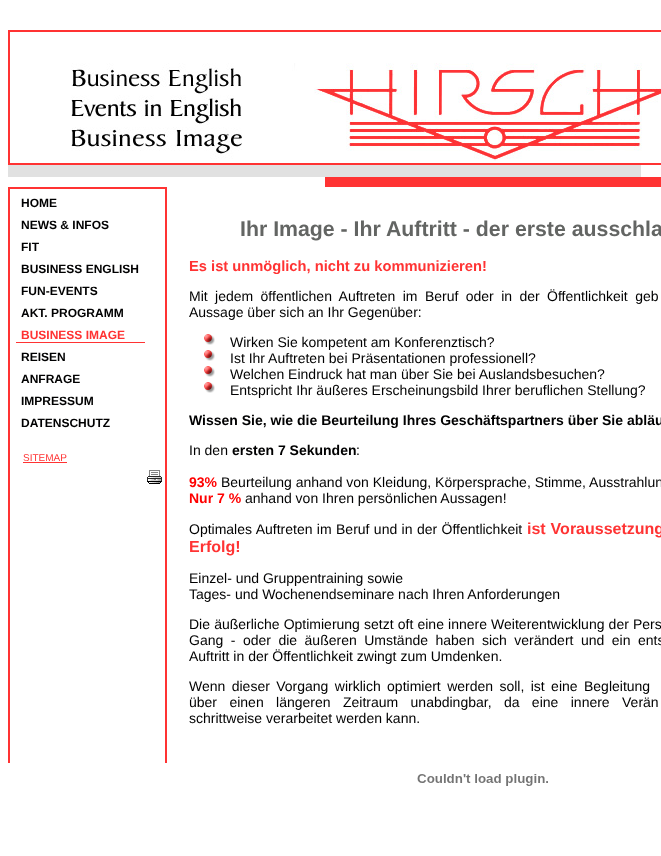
<?xml version="1.0" encoding="UTF-8"?>
<svg xmlns="http://www.w3.org/2000/svg" xmlns:xlink="http://www.w3.org/1999/xlink" width="661" height="856">
  <rect width="100%" height="100%" fill="#ffffff" />
  <rect x="9" y="31" width="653" height="133" fill="none" stroke="#ff3333" stroke-width="2" />
  <image x="71" y="63" width="590" height="98" xlink:href="image1.png" />
  <rect x="8" y="165" width="633" height="12" fill="#e1e1e1" />
  <rect x="325" y="177" width="316" height="10" fill="#ff3333" />
  <rect x="641" y="177" width="20" height="10" fill="#ff3333" />
  <rect x="8" y="187" width="159" height="2" fill="#ff3333" />
  <rect x="165" y="187" width="2" height="576" fill="#ff3333" />
  <rect x="8" y="187" width="2" height="576" fill="#ff3333" />
  <rect x="15" y="342" width="130" height="1" fill="#ff3333" />
  <rect x="15" y="342" width="1" height="1" fill="#ffffff" />
  <rect x="23" y="462" width="44" height="1" fill="#ff3333" />
  <image x="147" y="470" width="15" height="14" xlink:href="image2.png" />
  <image x="204" y="334" width="11" height="11" xlink:href="image3.png" />
  <image x="204" y="350" width="11" height="11" xlink:href="image3.png" />
  <image x="204" y="366" width="11" height="11" xlink:href="image3.png" />
  <image x="204" y="382" width="11" height="11" xlink:href="image3.png" />
  <image x="417" y="774" width="131" height="12" xlink:href="image4.png" />
  <text x="21" y="207" style="font-family: Liberation Sans; font-size: 12px; font-weight: bold; fill: #000001">HOME</text>
  <text x="21" y="229" style="font-family: Liberation Sans; font-size: 12px; font-weight: bold; fill: #000001">NEWS &amp; INFOS</text>
  <text x="21" y="251" style="font-family: Liberation Sans; font-size: 12px; font-weight: bold; fill: #000001">FIT</text>
  <text x="21" y="273" style="font-family: Liberation Sans; font-size: 12px; font-weight: bold; fill: #000001">BUSINESS ENGLISH</text>
  <text x="21" y="295" style="font-family: Liberation Sans; font-size: 12px; font-weight: bold; fill: #000001">FUN-EVENTS</text>
  <text x="21" y="317" style="font-family: Liberation Sans; font-size: 12px; font-weight: bold; fill: #000001">AKT. PROGRAMM</text>
  <text x="21" y="339" style="font-family: Liberation Sans; font-size: 12px; font-weight: bold; fill: #ff3333">BUSINESS IMAGE</text>
  <text x="21" y="361" style="font-family: Liberation Sans; font-size: 12px; font-weight: bold; fill: #000001">REISEN</text>
  <text x="21" y="383" style="font-family: Liberation Sans; font-size: 12px; font-weight: bold; fill: #000001">ANFRAGE</text>
  <text x="21" y="405" style="font-family: Liberation Sans; font-size: 12px; font-weight: bold; fill: #000001">IMPRESSUM</text>
  <text x="21" y="427" style="font-family: Liberation Sans; font-size: 12px; font-weight: bold; fill: #000001">DATENSCHUTZ</text>
  <text x="23" y="461" style="font-family: Liberation Sans; font-size: 10px; fill: #ff3333">SITEMAP</text>
  <text x="240" y="236" style="font-family: Liberation Sans; font-size: 21.3px; font-weight: bold; fill: #636563">Ihr Image - Ihr Auftritt - der erste ausschla</text>
  <text x="189" y="271" style="font-family: Liberation Sans; font-size: 14.7px; font-weight: bold; fill: #ff3333">Es ist unmöglich, nicht zu kommunizieren!</text>
  <text x="189" y="301" word-spacing="3.5" style="font-family: Liberation Sans; font-size: 14px; fill: #000001">Mit jedem öffentlichen Auftreten im Beruf oder in der Öffentlichkeit geb</text>
  <text x="189" y="317" style="font-family: Liberation Sans; font-size: 14px; fill: #000001">Aussage über sich an Ihr Gegenüber:</text>
  <text x="230" y="347" style="font-family: Liberation Sans; font-size: 14px; fill: #000001">Wirken Sie kompetent am Konferenztisch?</text>
  <text x="230" y="363" style="font-family: Liberation Sans; font-size: 14px; fill: #000001">Ist Ihr Auftreten bei Präsentationen professionell?</text>
  <text x="230" y="379" style="font-family: Liberation Sans; font-size: 14px; fill: #000001">Welchen Eindruck hat man über Sie bei Auslandsbesuchen?</text>
  <text x="230" y="395" style="font-family: Liberation Sans; font-size: 14px; fill: #000001">Entspricht Ihr äußeres Erscheinungsbild Ihrer beruflichen Stellung?</text>
  <text x="189" y="425" style="font-family: Liberation Sans; font-size: 14px; font-weight: bold; fill: #000001">Wissen Sie, wie die Beurteilung Ihres Geschäftspartners über Sie abläu</text>
  <text x="189" y="455" style="font-family: Liberation Sans; font-size: 14px; fill: #000001">In den</text>
  <text x="232" y="455" style="font-family: Liberation Sans; font-size: 14px; font-weight: bold; fill: #000001">ersten 7 Sekunden</text>
  <text x="356" y="455" style="font-family: Liberation Sans; font-size: 14px; fill: #000001">:</text>
  <text x="189" y="487" style="font-family: Liberation Sans; font-size: 14px; font-weight: bold; fill: #ff0000">93%</text>
  <text x="221" y="487" style="font-family: Liberation Sans; font-size: 14px; fill: #000001">Beurteilung anhand von Kleidung, Körpersprache, Stimme, Ausstrahlun</text>
  <text x="189" y="503" style="font-family: Liberation Sans; font-size: 14px; font-weight: bold; fill: #ff0000">Nur 7 %</text>
  <text x="245" y="503" style="font-family: Liberation Sans; font-size: 14px; fill: #000001">anhand von Ihren persönlichen Aussagen!</text>
  <text x="189" y="534" word-spacing="0.5" style="font-family: Liberation Sans; font-size: 14px; fill: #000001">Optimales Auftreten im Beruf und in der Öffentlichkeit</text>
  <text x="527" y="534" word-spacing="0.5" style="font-family: Liberation Sans; font-size: 16px; font-weight: bold; fill: #ff3333">ist Voraussetzung</text>
  <text x="189" y="552" style="font-family: Liberation Sans; font-size: 16px; font-weight: bold; fill: #ff3333">Erfolg!</text>
  <text x="189" y="583" style="font-family: Liberation Sans; font-size: 14px; fill: #000001">Einzel- und Gruppentraining sowie</text>
  <text x="189" y="599" style="font-family: Liberation Sans; font-size: 14px; fill: #000001">Tages- und Wochenendseminare nach Ihren Anforderungen</text>
  <text x="189" y="629" word-spacing="0.25" style="font-family: Liberation Sans; font-size: 14px; fill: #000001">Die äußerliche Optimierung setzt oft eine innere Weiterentwicklung der Pers</text>
  <text x="189" y="645" word-spacing="3.6" style="font-family: Liberation Sans; font-size: 14px; fill: #000001">Gang - oder die äußeren Umstände haben sich verändert und ein ents</text>
  <text x="189" y="661" style="font-family: Liberation Sans; font-size: 14px; fill: #000001">Auftritt in der Öffentlichkeit zwingt zum Umdenken.</text>
  <text x="189" y="691" word-spacing="2.5" style="font-family: Liberation Sans; font-size: 14px; fill: #000001">Wenn dieser Vorgang wirklich optimiert werden soll, ist eine Begleitung</text>
  <text x="189" y="707" word-spacing="8.5" style="font-family: Liberation Sans; font-size: 14px; fill: #000001">über einen längeren Zeitraum unabdingbar, da eine innere Verän</text>
  <text x="189" y="723" style="font-family: Liberation Sans; font-size: 14px; fill: #000001">schrittweise verarbeitet werden kann.</text>
</svg>
